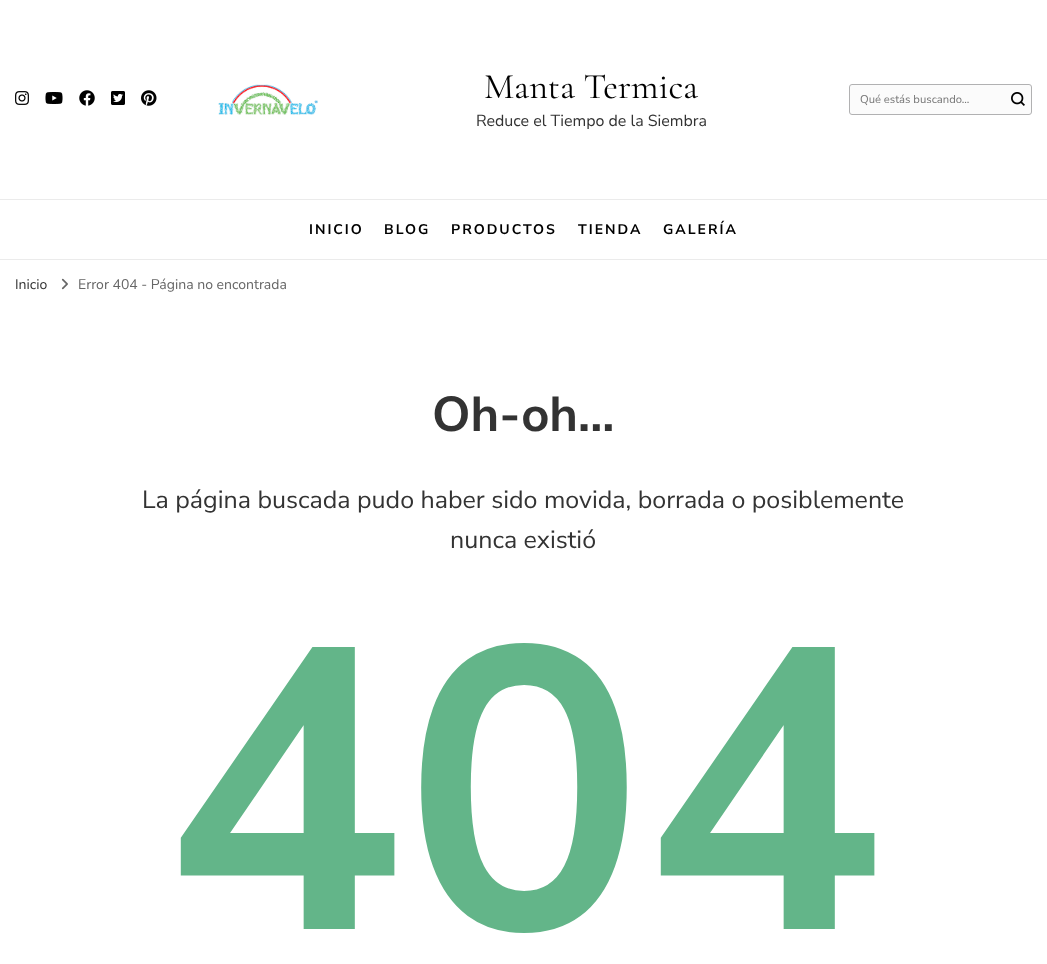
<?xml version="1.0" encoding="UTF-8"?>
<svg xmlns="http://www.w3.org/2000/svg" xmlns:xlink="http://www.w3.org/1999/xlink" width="1047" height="964">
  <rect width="100%" height="100%" fill="#ffffff" />
  <rect y="259" width="1047" height="1" fill="#ebebeb" />
  <image x="15" y="91" width="14" height="14" xlink:href="image1.png" />
  <image x="45" y="92" width="18" height="12" xlink:href="image2.png" />
  <image x="79" y="90" width="16" height="16" xlink:href="image3.png" />
  <image x="111" y="91" width="14" height="14" xlink:href="image4.png" />
  <image x="141" y="90" width="16" height="16" xlink:href="image5.png" />
  <image x="218" y="84" width="100" height="31" xlink:href="image6.png" />
  <rect x="849.5" y="84.5" width="182" height="30" rx="2.5" fill="#fbfbfb" stroke="#b1b1b2" />
  <image x="1011" y="92" width="14" height="14" xlink:href="image7.png" />
  <rect y="199" width="1047" height="1" fill="#ebebeb" />
  <image x="61" y="278" width="7" height="12" xlink:href="image8.png" />
  <text x="484" y="98" style="font-family: Cormorant Garamond; font-size: 36px; font-weight: 300; fill: #000000">Manta Termica</text>
  <text x="476" y="126" style="font-family: Nunito Sans; font-size: 16px; fill: #333333">Reduce el Tiempo de la Siembra</text>
  <text x="860" y="103" style="font-family: Nunito Sans; font-size: 11.25px; fill: #757575">Qué estás buscando...</text>
  <text x="309" y="234" style="font-family: Nunito Sans; font-size: 14px; font-weight: bold; letter-spacing: 2px; fill: #000000">INICIO</text>
  <text x="384" y="234" style="font-family: Nunito Sans; font-size: 14px; font-weight: bold; letter-spacing: 2px; fill: #000000">BLOG</text>
  <text x="451" y="234" style="font-family: Nunito Sans; font-size: 14px; font-weight: bold; letter-spacing: 2px; fill: #000000">PRODUCTOS</text>
  <text x="578" y="234" style="font-family: Nunito Sans; font-size: 14px; font-weight: bold; letter-spacing: 2px; fill: #000000">TIENDA</text>
  <text x="663" y="234" style="font-family: Nunito Sans; font-size: 14px; font-weight: bold; letter-spacing: 2px; fill: #000000">GALERÍA</text>
  <text x="15" y="289" style="font-family: Nunito Sans; font-size: 14px; fill: #333333">Inicio</text>
  <text x="78" y="289" style="font-family: Nunito Sans; font-size: 14px; fill: #666666">Error 404 - Página no encontrada</text>
  <text x="432" y="431" style="font-family: Nunito Sans; font-size: 49px; font-weight: bold; fill: #333333">Oh-oh...</text>
  <text x="142" y="508" style="font-family: Nunito Sans; font-size: 25px; fill: #333333">La página buscada pudo haber sido movida, borrada o posiblemente</text>
  <text x="450" y="548" style="font-family: Nunito Sans; font-size: 25px; fill: #333333">nunca existió</text>
  <text x="164" y="929" style="font-family: Nunito Sans; font-size: 400px; font-weight: bold; fill: #63b589">404</text>
</svg>
